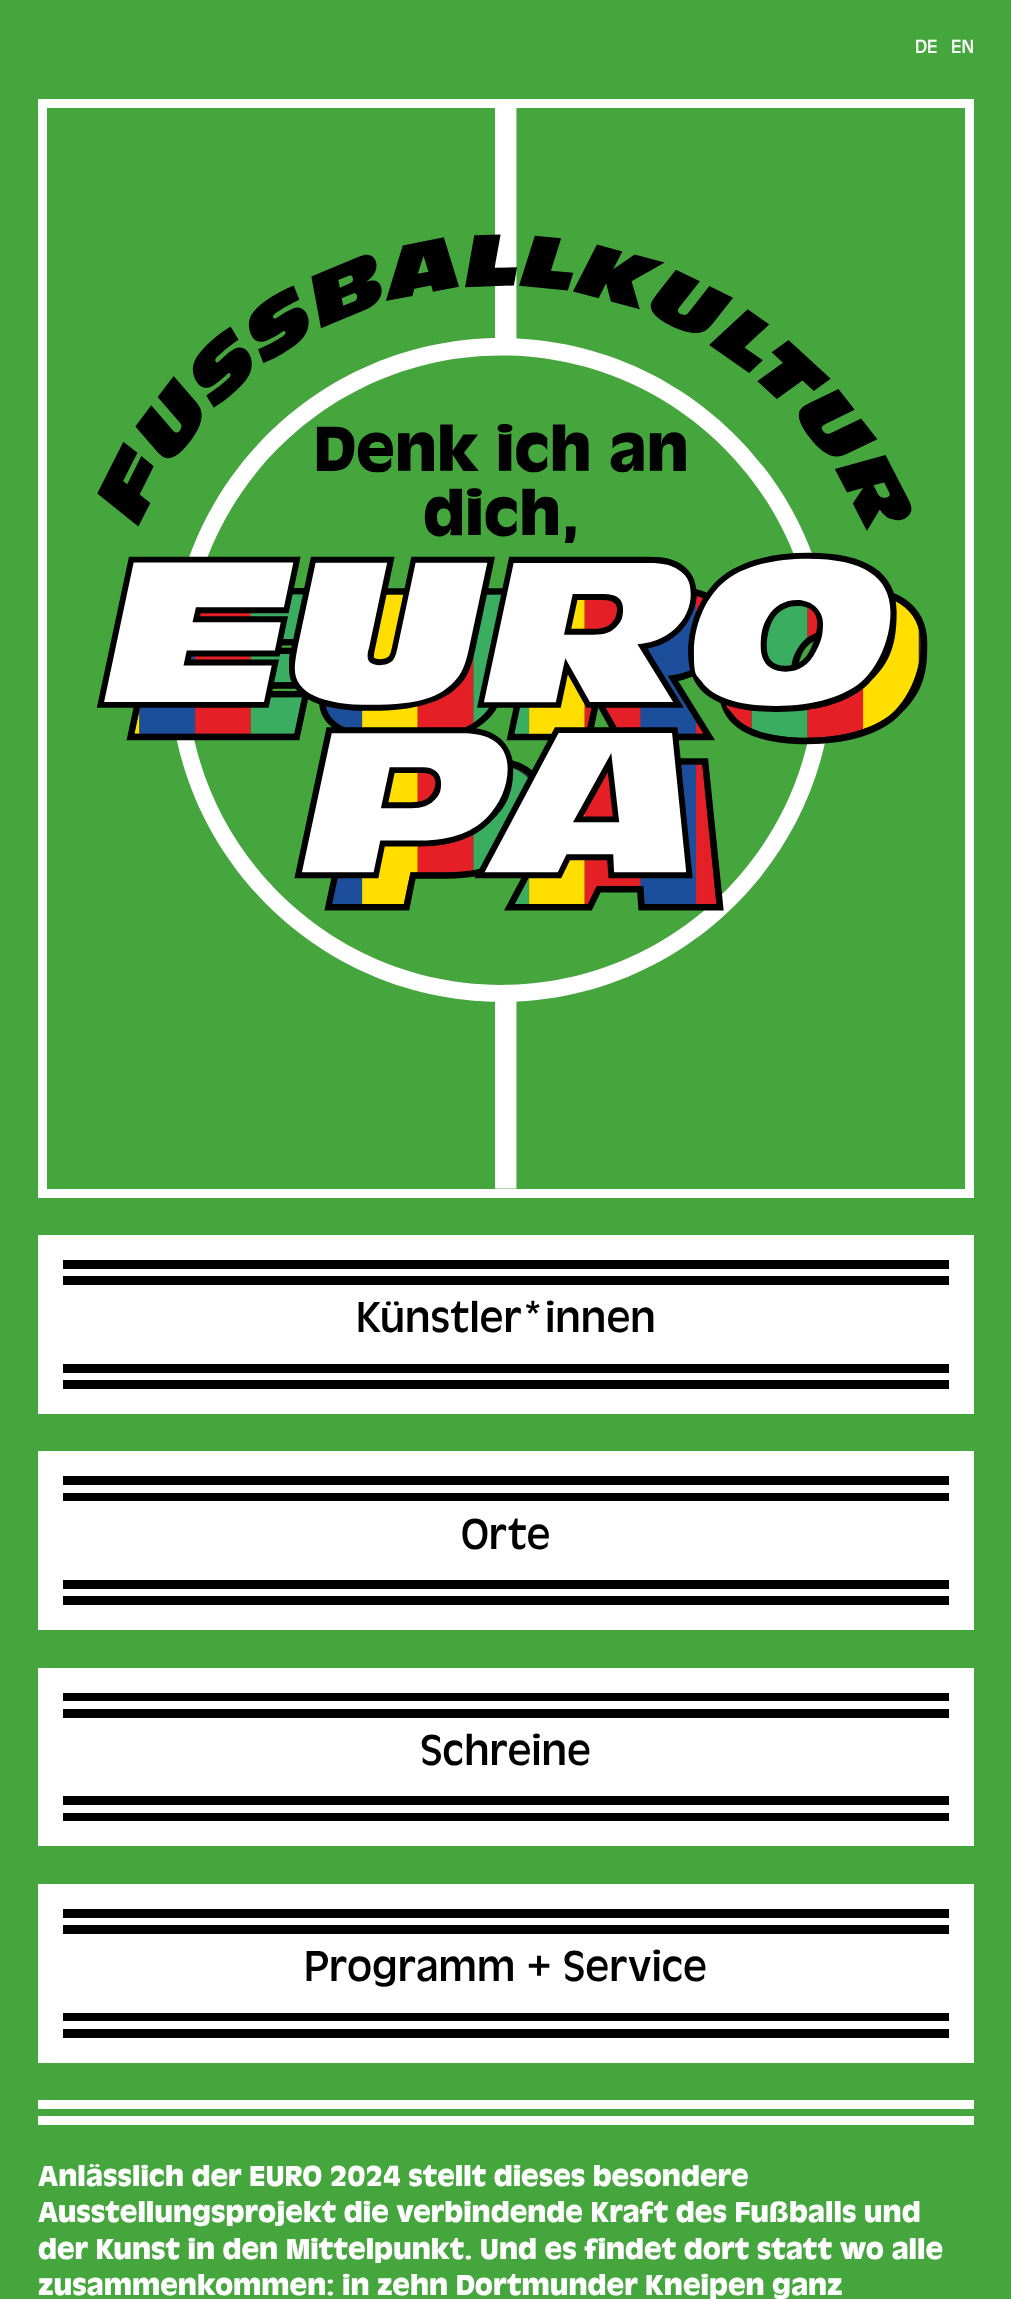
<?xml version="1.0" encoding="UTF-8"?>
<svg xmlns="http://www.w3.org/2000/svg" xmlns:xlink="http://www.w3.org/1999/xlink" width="1011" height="2299">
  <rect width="100%" height="100%" fill="#46a63e" />
  <rect x="42.5" y="103.5" width="927" height="1090" fill="none" stroke="#ffffff" stroke-width="9" />
  <image x="96" y="108" width="832" height="1081" xlink:href="image1.png" />
  <rect x="38" y="1235" width="936" height="179" fill="#ffffff" />
  <rect x="63" y="1260" width="886" height="9" fill="#000000" />
  <rect x="63" y="1276" width="886" height="9" fill="#000000" />
  <rect x="63" y="1364" width="886" height="9" fill="#000000" />
  <rect x="63" y="1380" width="886" height="9" fill="#000000" />
  <rect x="38" y="1451" width="936" height="179" fill="#ffffff" />
  <rect x="63" y="1476" width="886" height="9" fill="#000000" />
  <rect x="63" y="1493" width="886" height="8" fill="#000000" />
  <rect x="63" y="1580" width="886" height="9" fill="#000000" />
  <rect x="63" y="1596" width="886" height="9" fill="#000000" />
  <rect x="38" y="1668" width="936" height="178" fill="#ffffff" />
  <rect x="63" y="1693" width="886" height="8" fill="#000000" />
  <rect x="63" y="1709" width="886" height="9" fill="#000000" />
  <rect x="63" y="1796" width="886" height="9" fill="#000000" />
  <rect x="63" y="1813" width="886" height="8" fill="#000000" />
  <rect x="38" y="1884" width="936" height="179" fill="#ffffff" />
  <rect x="63" y="1909" width="886" height="9" fill="#000000" />
  <rect x="63" y="1925" width="886" height="9" fill="#000000" />
  <rect x="63" y="2013" width="886" height="8" fill="#000000" />
  <rect x="63" y="2029" width="886" height="9" fill="#000000" />
  <rect x="38" y="2100" width="936" height="9" fill="#ffffff" />
  <rect x="38" y="2116" width="936" height="9" fill="#ffffff" />
  <text x="915" y="53" style="font-family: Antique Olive; font-size: 20px; fill: #ffffff">DE</text>
  <text x="951" y="53" style="font-family: Antique Olive; font-size: 20px; fill: #ffffff">EN</text>
  <text x="356" y="1332" style="font-family: Antique Olive; font-size: 45px; fill: #000000">Künstler*innen</text>
  <text x="461" y="1549" style="font-family: Antique Olive; font-size: 45px; fill: #000000">Orte</text>
  <text x="420" y="1765" style="font-family: Antique Olive; font-size: 45px; fill: #000000">Schreine</text>
  <text x="304" y="1981" style="font-family: Antique Olive; font-size: 45px; fill: #000000">Programm + Service</text>
  <text x="38" y="2186" style="font-family: Antique Olive; font-size: 30px; font-weight: bold; fill: #ffffff">Anlässlich der EURO 2024 stellt dieses besondere</text>
  <text x="38" y="2222" style="font-family: Antique Olive; font-size: 30px; font-weight: bold; fill: #ffffff">Ausstellungsprojekt die verbindende Kraft des Fußballs und</text>
  <text x="38" y="2259" style="font-family: Antique Olive; font-size: 30px; font-weight: bold; fill: #ffffff">der Kunst in den Mittelpunkt. Und es findet dort statt wo alle</text>
  <text x="38" y="2295" style="font-family: Antique Olive; font-size: 30px; font-weight: bold; fill: #ffffff">zusammenkommen: in zehn Dortmunder Kneipen ganz</text>
</svg>
